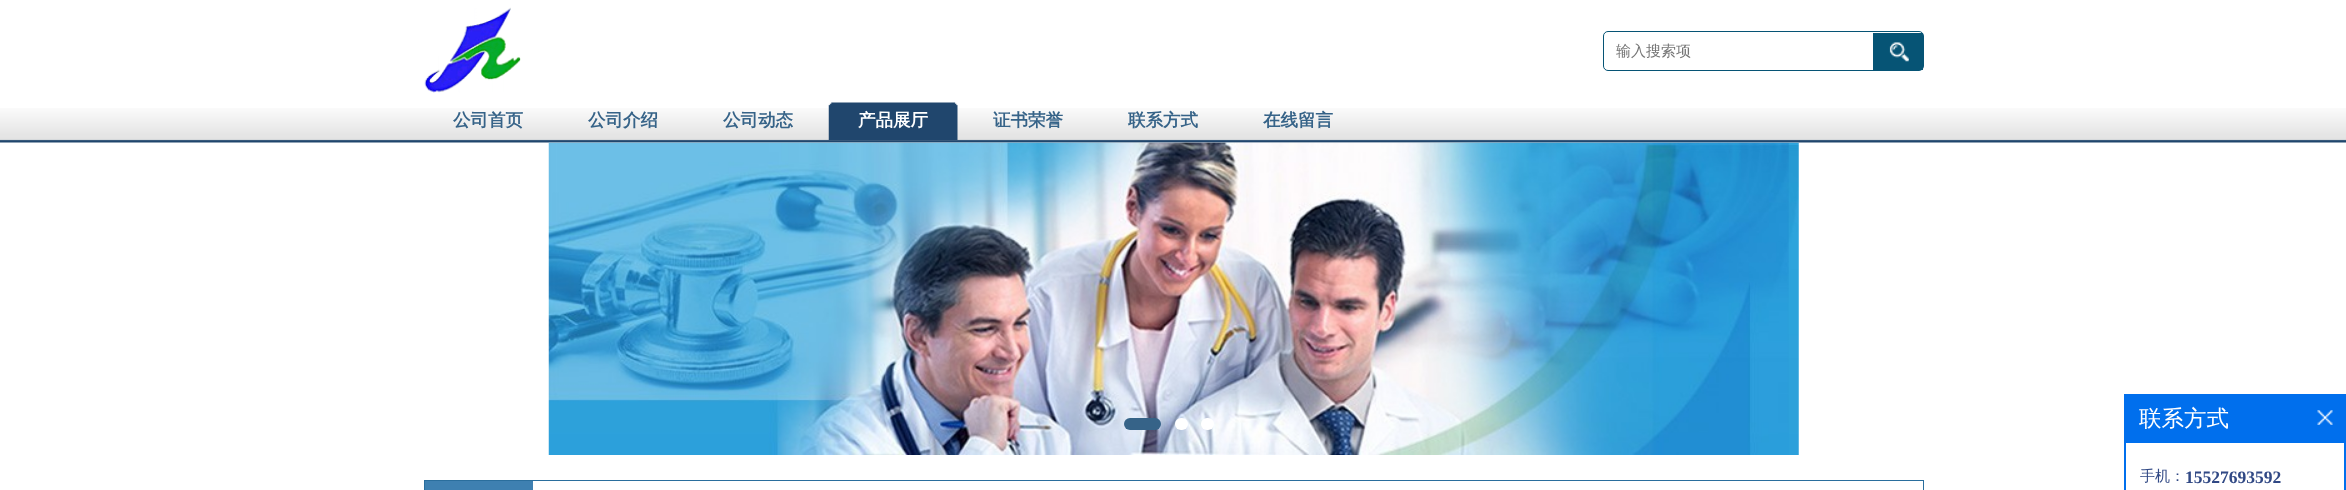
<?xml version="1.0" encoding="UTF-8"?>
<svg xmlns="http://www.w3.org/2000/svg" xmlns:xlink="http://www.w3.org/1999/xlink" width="2346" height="490">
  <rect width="100%" height="100%" fill="#ffffff" />
  <image x="424" y="7" width="97" height="86" xlink:href="image1.png" />
  <rect x="1603.5" y="31.5" width="320" height="39" rx="4.5" fill="none" stroke="#065475" />
  <rect x="1873" y="33" width="50" height="37" fill="#065475" />
  <image x="1889" y="42" width="20" height="20" xlink:href="image2.png" />
  <image x="0" y="108" width="2346" height="35" xlink:href="image3.png" />
  <image x="828" y="102" width="130" height="38" xlink:href="image4.png" />
  <image x="548" y="142" width="1251" height="313" xlink:href="image5.png" />
  <rect x="1124" y="418" width="37" height="12" rx="6" fill="#366388" />
  <rect x="1175" y="418" width="13" height="12" rx="6" fill="#ffffff" />
  <rect x="1201" y="418" width="13" height="12" rx="6" fill="#ffffff" />
  <rect x="2124" y="394" width="222" height="96" fill="#006fed" />
  <image x="2317" y="410" width="16" height="15" xlink:href="image6.png" />
  <rect x="2126" y="443" width="218" height="47" fill="#ffffff" />
  <rect x="424.5" y="480.5" width="1499" height="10" fill="none" stroke="#2a6e9d" />
  <rect x="425" y="481" width="108" height="9" fill="#3e80b1" />
  <text x="1616" y="56" style="font-family: WenQuanYi Zen Hei; font-size: 15px; font-weight: 500; fill: #757575">输入搜索项</text>
  <text x="453" y="126" style="font-family: WenQuanYi Zen Hei; font-size: 17.5px; font-weight: bold; fill: #366388">公司首页</text>
  <text x="588" y="126" style="font-family: WenQuanYi Zen Hei; font-size: 17.5px; font-weight: bold; fill: #366388">公司介绍</text>
  <text x="723" y="126" style="font-family: WenQuanYi Zen Hei; font-size: 17.5px; font-weight: bold; fill: #366388">公司动态</text>
  <text x="858" y="126" style="font-family: WenQuanYi Zen Hei; font-size: 17.5px; font-weight: bold; fill: #ffffff">产品展厅</text>
  <text x="993" y="126" style="font-family: WenQuanYi Zen Hei; font-size: 17.5px; font-weight: bold; fill: #366388">证书荣誉</text>
  <text x="1128" y="126" style="font-family: WenQuanYi Zen Hei; font-size: 17.5px; font-weight: bold; fill: #366388">联系方式</text>
  <text x="1263" y="126" style="font-family: WenQuanYi Zen Hei; font-size: 17.5px; font-weight: bold; fill: #366388">在线留言</text>
  <text x="2139" y="426" style="font-family: WenQuanYi Zen Hei; font-size: 22.5px; font-weight: 500; fill: #ffffff">联系方式</text>
  <text x="2140" y="481" style="font-family: WenQuanYi Zen Hei; font-size: 15px; font-weight: 500; fill: #314985">手机：</text>
  <text x="2185" y="483" style="font-family: Liberation Serif; font-size: 17.5px; font-weight: bold; fill: #314985">15527693592</text>
</svg>
